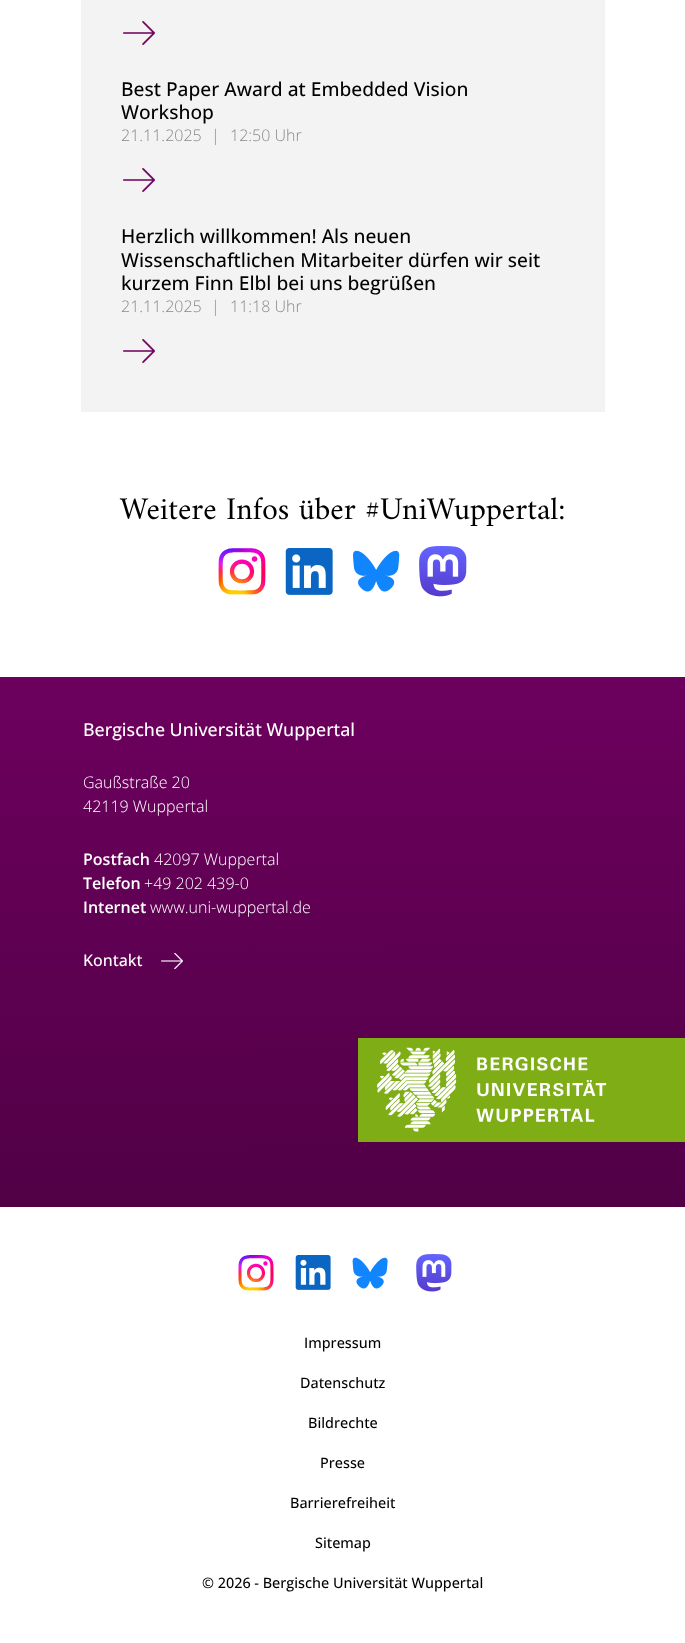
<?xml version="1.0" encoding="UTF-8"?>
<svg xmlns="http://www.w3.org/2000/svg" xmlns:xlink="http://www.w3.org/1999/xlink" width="685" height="1643">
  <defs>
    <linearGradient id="g1" gradientUnits="userSpaceOnUse" x1="342" y1="677" x2="343" y2="1207"><stop offset="0" stop-color="#6d005e" /><stop offset="1" stop-color="#510046" /></linearGradient>
  </defs>
  <rect width="100%" height="100%" fill="#ffffff" />
  <rect x="81" width="524" height="412" fill="#f3f3f3" />
  <image x="123" y="21" width="32" height="24" xlink:href="image1.png" />
  <image x="123" y="168" width="32" height="24" xlink:href="image1.png" />
  <image x="123" y="339" width="32" height="24" xlink:href="image1.png" />
  <image x="218" y="548" width="48" height="47" xlink:href="image2.png" />
  <image x="285" y="548" width="48" height="47" xlink:href="image3.png" />
  <image x="353" y="550" width="47" height="42" xlink:href="image4.png" />
  <image x="419" y="546" width="48" height="51" xlink:href="image5.png" />
  <rect y="677" width="685" height="530" fill="url(#g1)" />
  <image x="161" y="953" width="22" height="16" xlink:href="image6.png" />
  <rect x="358" y="1038" width="327" height="104" fill="#7ead16" />
  <image x="377" y="1047" width="230" height="85" xlink:href="image7.png" />
  <image x="238" y="1255" width="36" height="36" xlink:href="image8.png" />
  <image x="295" y="1255" width="36" height="35" xlink:href="image9.png" />
  <image x="352" y="1257" width="36" height="32" xlink:href="image10.png" />
  <image x="416" y="1254" width="36" height="38" xlink:href="image11.png" />
  <text x="121" y="96" style="font-family: Open Sans; font-size: 19.2px; font-weight: 500; fill: #000000">Best Paper Award at Embedded Vision</text>
  <text x="121" y="119" style="font-family: Open Sans; font-size: 19.2px; font-weight: 500; fill: #000000">Workshop</text>
  <text x="121" y="141" style="font-family: Open Sans; font-size: 16px; font-weight: 300; fill: #87888a">21.11.2025</text>
  <text x="211" y="141" style="font-family: Open Sans; font-size: 16px; font-weight: 300; fill: #87888a">|</text>
  <text x="230" y="141" style="font-family: Open Sans; font-size: 16px; font-weight: 300; fill: #87888a">12:50 Uhr</text>
  <text x="121" y="243" style="font-family: Open Sans; font-size: 19.2px; font-weight: 500; fill: #000000">Herzlich willkommen! Als neuen</text>
  <text x="121" y="267" style="font-family: Open Sans; font-size: 19.2px; font-weight: 500; fill: #000000">Wissenschaftlichen Mitarbeiter dürfen wir seit</text>
  <text x="121" y="290" style="font-family: Open Sans; font-size: 19.2px; font-weight: 500; fill: #000000">kurzem Finn Elbl bei uns begrüßen</text>
  <text x="121" y="312" style="font-family: Open Sans; font-size: 16px; font-weight: 300; fill: #87888a">21.11.2025</text>
  <text x="211" y="312" style="font-family: Open Sans; font-size: 16px; font-weight: 300; fill: #87888a">|</text>
  <text x="230" y="312" style="font-family: Open Sans; font-size: 16px; font-weight: 300; fill: #87888a">11:18 Uhr</text>
  <text x="120" y="519" style="font-family: Amiri; font-size: 32px; fill: #000000">Weitere Infos über #UniWuppertal:</text>
  <text x="83" y="736" style="font-family: Open Sans; font-size: 17.75px; font-weight: 500; fill: #ffffff">Bergische Universität Wuppertal</text>
  <text x="83" y="788" style="font-family: Open Sans; font-size: 16px; font-weight: 300; fill: #ffffff">Gaußstraße 20</text>
  <text x="83" y="812" style="font-family: Open Sans; font-size: 16px; font-weight: 300; fill: #ffffff">42119 Wuppertal</text>
  <text x="83" y="865" style="font-family: Open Sans; font-size: 16px; font-weight: 600; fill: #ffffff">Postfach</text>
  <text x="154" y="865" style="font-family: Open Sans; font-size: 16px; font-weight: 300; fill: #ffffff">42097 Wuppertal</text>
  <text x="83" y="889" style="font-family: Open Sans; font-size: 16px; font-weight: 600; fill: #ffffff">Telefon</text>
  <text x="144" y="889" style="font-family: Open Sans; font-size: 16px; font-weight: 300; fill: #ffffff">+49 202 439-0</text>
  <text x="83" y="913" style="font-family: Open Sans; font-size: 16px; font-weight: 600; fill: #ffffff">Internet</text>
  <text x="150" y="913" style="font-family: Open Sans; font-size: 16px; font-weight: 300; fill: #ffffff">www.uni-wuppertal.de</text>
  <text x="83" y="966" style="font-family: Open Sans; font-size: 16px; font-weight: 500; fill: #ffffff">Kontakt</text>
  <text x="304" y="1348" style="font-family: Open Sans; font-size: 14.4px; font-weight: 500; fill: #000000">Impressum</text>
  <text x="300" y="1388" style="font-family: Open Sans; font-size: 14.4px; font-weight: 500; fill: #000000">Datenschutz</text>
  <text x="308" y="1428" style="font-family: Open Sans; font-size: 14.4px; font-weight: 500; fill: #000000">Bildrechte</text>
  <text x="320" y="1468" style="font-family: Open Sans; font-size: 14.4px; font-weight: 500; fill: #000000">Presse</text>
  <text x="290" y="1508" style="font-family: Open Sans; font-size: 14.4px; font-weight: 500; fill: #000000">Barrierefreiheit</text>
  <text x="315" y="1548" style="font-family: Open Sans; font-size: 14.4px; font-weight: 500; fill: #000000">Sitemap</text>
  <text x="202" y="1588" style="font-family: Open Sans; font-size: 14.4px; font-weight: 500; fill: #000000">© 2026 - Bergische Universität Wuppertal</text>
</svg>
